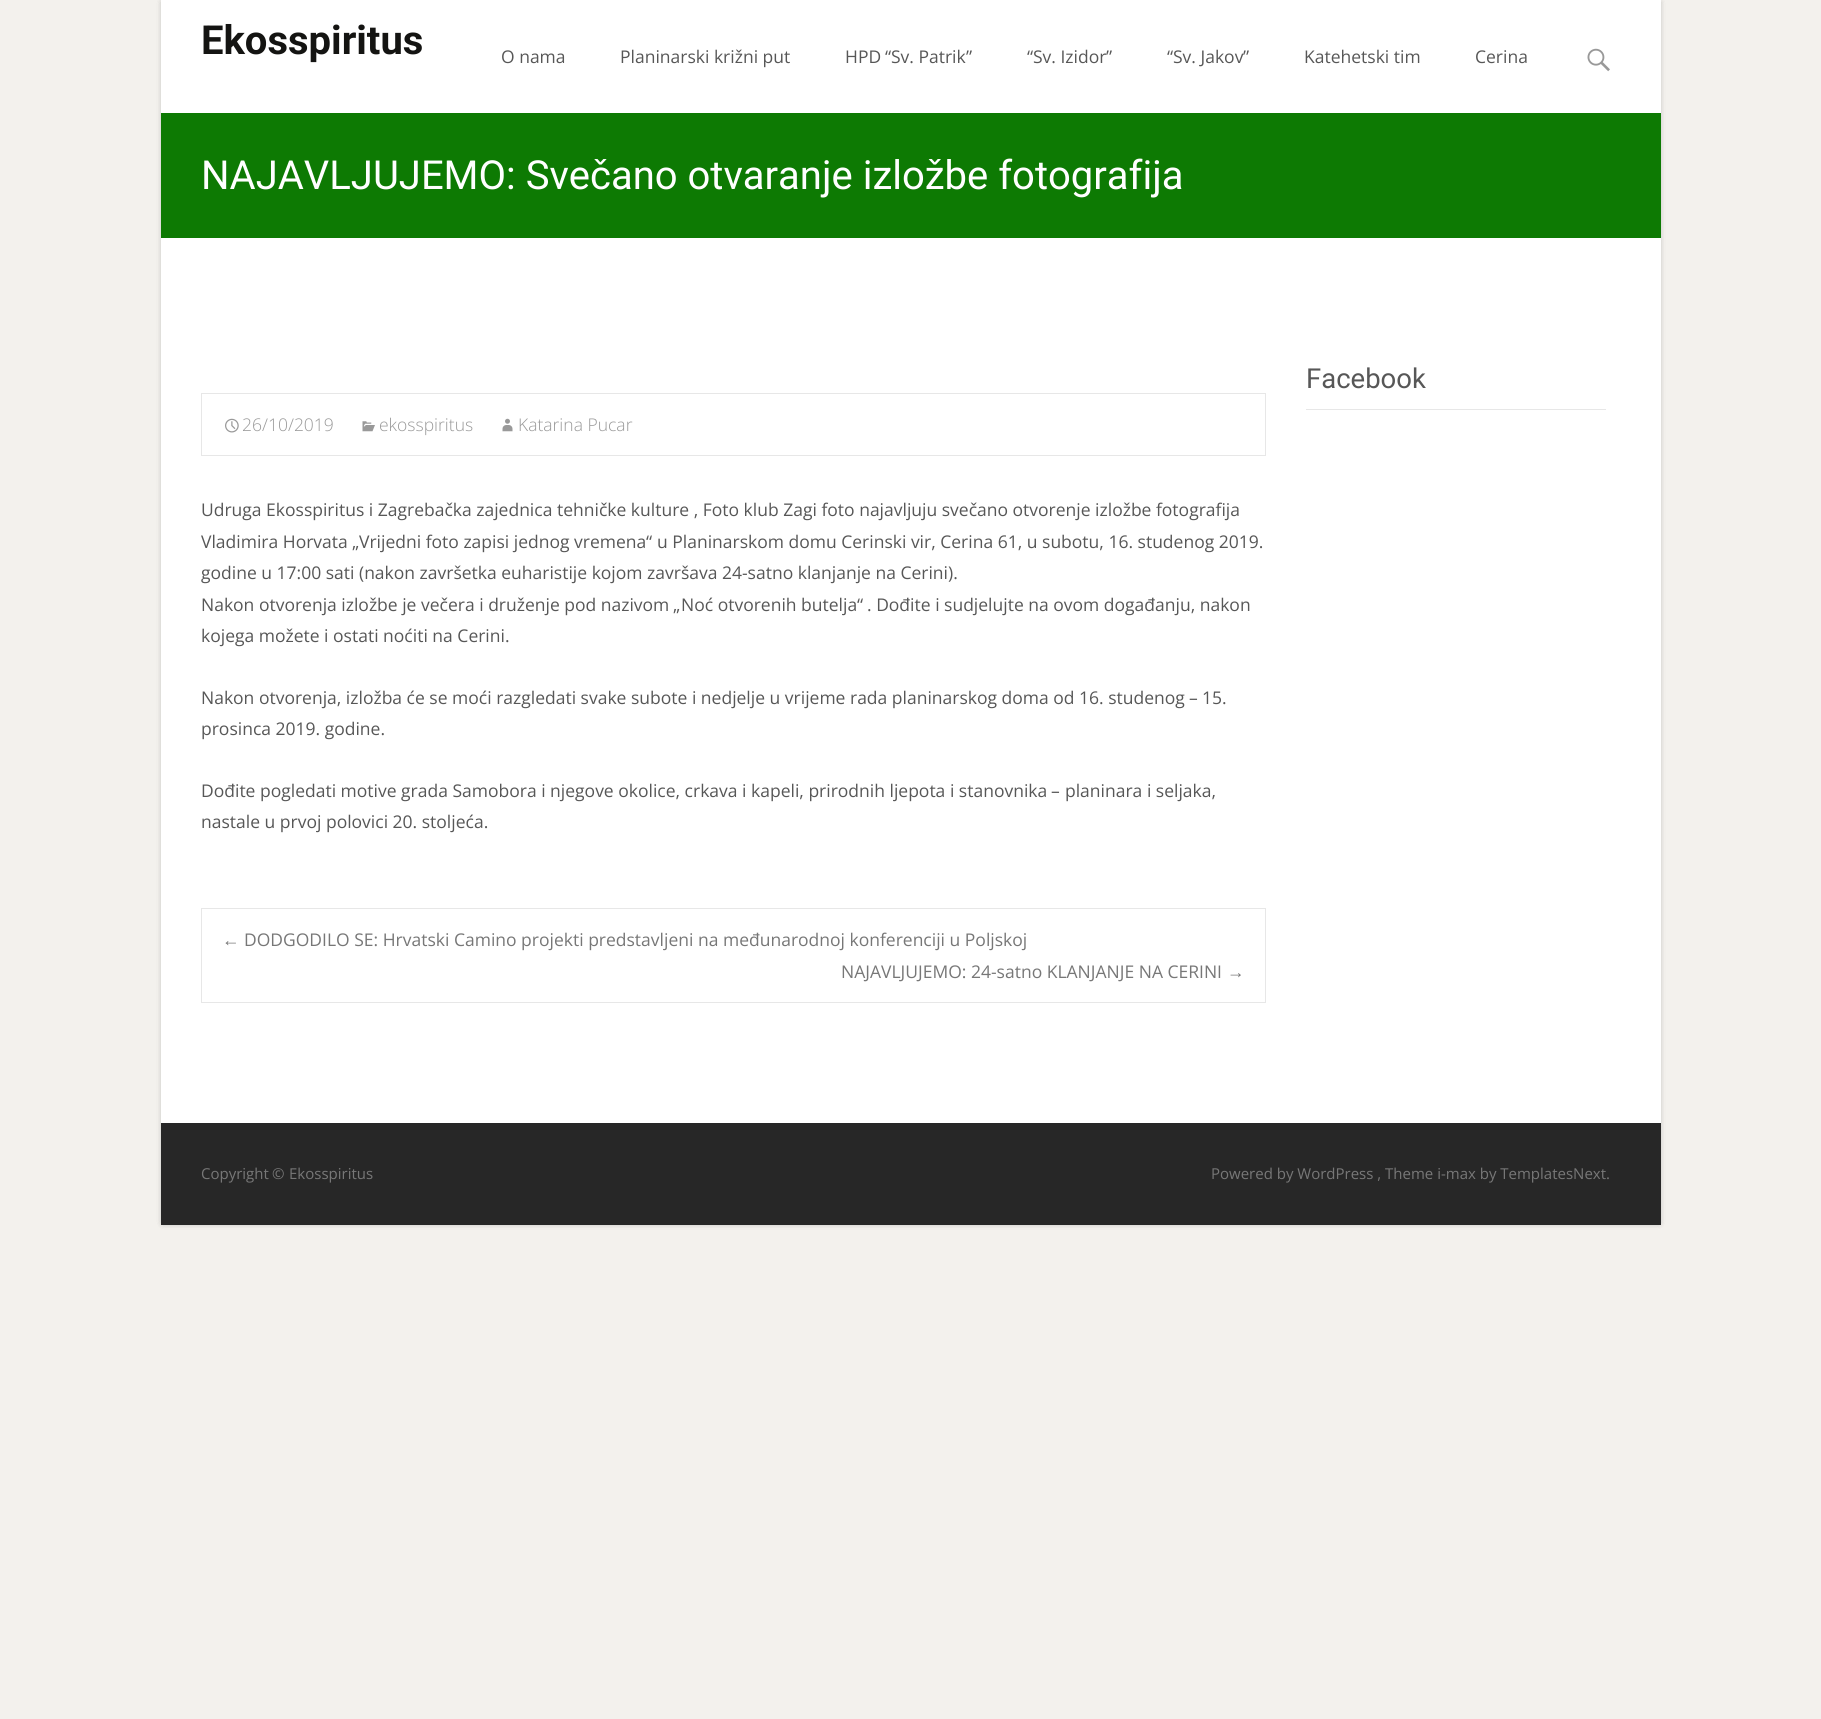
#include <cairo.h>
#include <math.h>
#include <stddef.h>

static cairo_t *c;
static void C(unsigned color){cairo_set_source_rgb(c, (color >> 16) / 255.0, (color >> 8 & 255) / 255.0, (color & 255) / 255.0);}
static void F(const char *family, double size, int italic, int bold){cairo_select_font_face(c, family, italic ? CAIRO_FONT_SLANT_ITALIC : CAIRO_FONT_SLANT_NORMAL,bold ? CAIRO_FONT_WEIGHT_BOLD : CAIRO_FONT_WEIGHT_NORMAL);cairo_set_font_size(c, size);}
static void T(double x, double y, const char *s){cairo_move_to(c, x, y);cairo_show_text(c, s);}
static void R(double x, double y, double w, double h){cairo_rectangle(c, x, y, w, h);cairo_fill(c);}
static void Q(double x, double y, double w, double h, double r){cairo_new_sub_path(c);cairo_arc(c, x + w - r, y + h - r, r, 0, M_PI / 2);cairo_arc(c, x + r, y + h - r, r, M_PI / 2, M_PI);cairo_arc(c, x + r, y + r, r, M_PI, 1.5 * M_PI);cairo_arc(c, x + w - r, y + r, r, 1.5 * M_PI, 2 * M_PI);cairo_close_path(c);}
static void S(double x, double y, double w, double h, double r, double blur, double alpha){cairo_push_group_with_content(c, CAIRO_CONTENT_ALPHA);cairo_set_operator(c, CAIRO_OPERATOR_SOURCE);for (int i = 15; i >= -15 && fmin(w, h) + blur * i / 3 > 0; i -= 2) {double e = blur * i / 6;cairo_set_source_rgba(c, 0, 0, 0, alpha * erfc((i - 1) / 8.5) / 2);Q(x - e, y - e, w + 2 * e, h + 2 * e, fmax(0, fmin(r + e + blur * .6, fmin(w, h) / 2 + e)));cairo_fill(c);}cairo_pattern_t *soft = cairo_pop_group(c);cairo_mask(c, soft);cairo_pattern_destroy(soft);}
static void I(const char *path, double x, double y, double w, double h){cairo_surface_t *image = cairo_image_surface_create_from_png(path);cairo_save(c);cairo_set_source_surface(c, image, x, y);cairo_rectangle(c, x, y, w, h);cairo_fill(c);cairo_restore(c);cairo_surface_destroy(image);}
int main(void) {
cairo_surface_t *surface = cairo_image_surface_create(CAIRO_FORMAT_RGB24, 1821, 1719);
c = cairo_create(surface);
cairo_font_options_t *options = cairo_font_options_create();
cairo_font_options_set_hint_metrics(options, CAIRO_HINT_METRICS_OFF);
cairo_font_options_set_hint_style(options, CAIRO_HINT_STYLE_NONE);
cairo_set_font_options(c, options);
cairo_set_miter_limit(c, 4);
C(0xf3f1ed);
cairo_paint(c);
C(0x000000);
S(161,0,1500,1225,2.5,2.5,.1);
S(161,0,1500,1225,2.5,2.5,.1);
C(0xffffff);
R(161,0,1500,1123);
F("Roboto",40,0,1);
C(0x141412);
T(201,54,"Ekosspiritus");
F("Open Sans",17.5,0,0);
C(0x575757);
T(501,63,"O nama");
T(620,63,"Planinarski križni put");
T(845,63,"HPD");
F("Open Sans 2",17.5,0,0);
T(885,63,"“");
F("Open Sans",17.5,0,0);
T(891,63,"Sv. Patrik");
F("Open Sans 2",17.5,0,0);
T(966,63,"”");
T(1027,63,"“");
F("Open Sans",17.5,0,0);
T(1033,63,"Sv. Izidor");
F("Open Sans 2",17.5,0,0);
T(1106,63,"”");
T(1167,63,"“");
F("Open Sans",17.5,0,0);
T(1173,63,"Sv. Jakov");
F("Open Sans 2",17.5,0,0);
T(1243,63,"”");
F("Open Sans",17.5,0,0);
T(1304,63,"Katehetski tim");
T(1475,63,"Cerina");
I("1.png",1587,48,23,24);
C(0x0d7a03);
R(161,113,1500,125);
F("Roboto",40,0,0);
C(0xffffff);
T(201,189,"NAJAVLJUJEMO: Svečano otvaranje izložbe fotografija");
C(0xe7e7e7);
R(1306,409,300,1);
F("Roboto",27.5,0,0);
C(0x575757);
T(1306,388,"Facebook");
cairo_rectangle(c,201.5,393.5,1064,62);
C(0xe7e7e7);
cairo_set_line_width(c,1);
cairo_stroke(c);
I("2.png",225,418,14,15);
F("Open Sans Light",17.5,0,0);
C(0x999999);
T(242,431,"26/10/2019");
I("3.png",362,421,13,11);
T(379,431,"ekosspiritus");
I("4.png",502,418,11,14);
T(518,431,"Katarina Pucar");
F("Open Sans",17.5,0,0);
C(0x575757);
T(201,516,"Udruga Ekosspiritus i Zagrebačka zajednica tehničke kulture , Foto klub Zagi foto najavljuju svečano otvorenje izložbe fotografija");
T(201,548,"Vladimira Horvata");
T(359,548,"Vrijedni foto zapisi jednog vremena");
F("Open Sans 2",17.5,0,0);
T(646,548,"“");
F("Open Sans",17.5,0,0);
T(657,548,"u Planinarskom domu Cerinski vir, Cerina 61, u subotu, 16. studenog 2019.");
F("Open Sans 2",17.5,0,0);
T(352,548,"„");
F("Open Sans",17.5,0,0);
T(201,579,"godine u 17:00 sati (nakon završetka euharistije kojom završava 24-satno klanjanje na Cerini).");
T(201,611,"Nakon otvorenja izložbe je večera i druženje pod nazivom");
T(681,611,"Noć otvorenih butelja");
F("Open Sans 2",17.5,0,0);
T(857,611,"“");
F("Open Sans",17.5,0,0);
T(867,611,". Dođite i sudjelujte na ovom događanju, nakon");
F("Open Sans 2",17.5,0,0);
T(673,611,"„");
F("Open Sans",17.5,0,0);
T(201,642,"kojega možete i ostati noćiti na Cerini.");
T(201,704,"Nakon otvorenja, izložba će se moći razgledati svake subote i nedjelje u vrijeme rada planinarskog doma od 16. studenog");
F("Open Sans 2",17.5,0,0);
T(1189,704,"–");
F("Open Sans",17.5,0,0);
T(1202,704,"15.");
T(201,735,"prosinca 2019. godine.");
T(201,797,"Dođite pogledati motive grada Samobora i njegove okolice, crkava i kapeli, prirodnih ljepota i stanovnika");
F("Open Sans 2",17.5,0,0);
T(1051,797,"–");
F("Open Sans",17.5,0,0);
T(1065,797,"planinara i seljaka,");
T(201,828,"nastale u prvoj polovici 20. stoljeća.");
cairo_rectangle(c,201.5,908.5,1064,94);
C(0xe7e7e7);
cairo_stroke(c);
F("Liberation Sans",17.5,0,0);
C(0x777777);
T(222,946,"←");
F("Open Sans",17.5,0,0);
T(244,946,"DODGODILO SE: Hrvatski Camino projekti predstavljeni na međunarodnoj konferenciji u Poljskoj");
T(841,978,"NAJAVLJUJEMO: 24-satno KLANJANJE NA CERINI");
F("Liberation Sans",17.5,0,0);
T(1227,978,"→");
C(0x272727);
R(161,1123,1500,102);
F("Open Sans",15,0,0);
C(0x777777);
T(201,1179,"Copyright");
F("Open Sans 2",15,0,0);
T(272,1179,"©");
F("Open Sans",15,0,0);
T(289,1179,"Ekosspiritus");
T(1211,1179,"Powered by WordPress , Theme i-max by TemplatesNext.");
cairo_surface_write_to_png(surface, "o.png");
cairo_font_options_destroy(options);
cairo_destroy(c);
cairo_surface_destroy(surface);
return 0;
}
